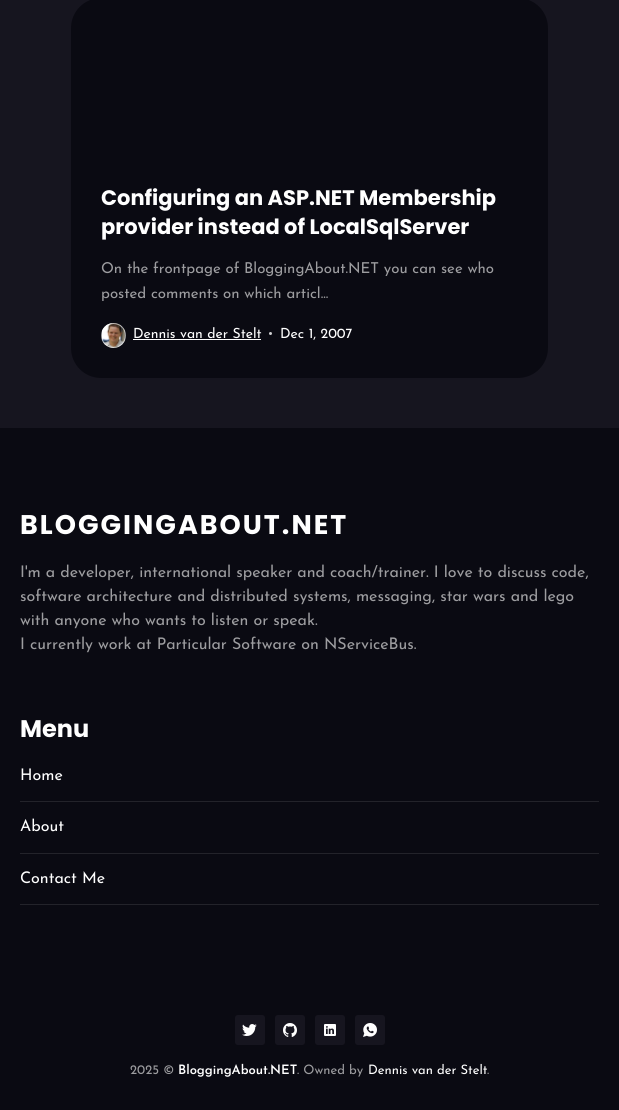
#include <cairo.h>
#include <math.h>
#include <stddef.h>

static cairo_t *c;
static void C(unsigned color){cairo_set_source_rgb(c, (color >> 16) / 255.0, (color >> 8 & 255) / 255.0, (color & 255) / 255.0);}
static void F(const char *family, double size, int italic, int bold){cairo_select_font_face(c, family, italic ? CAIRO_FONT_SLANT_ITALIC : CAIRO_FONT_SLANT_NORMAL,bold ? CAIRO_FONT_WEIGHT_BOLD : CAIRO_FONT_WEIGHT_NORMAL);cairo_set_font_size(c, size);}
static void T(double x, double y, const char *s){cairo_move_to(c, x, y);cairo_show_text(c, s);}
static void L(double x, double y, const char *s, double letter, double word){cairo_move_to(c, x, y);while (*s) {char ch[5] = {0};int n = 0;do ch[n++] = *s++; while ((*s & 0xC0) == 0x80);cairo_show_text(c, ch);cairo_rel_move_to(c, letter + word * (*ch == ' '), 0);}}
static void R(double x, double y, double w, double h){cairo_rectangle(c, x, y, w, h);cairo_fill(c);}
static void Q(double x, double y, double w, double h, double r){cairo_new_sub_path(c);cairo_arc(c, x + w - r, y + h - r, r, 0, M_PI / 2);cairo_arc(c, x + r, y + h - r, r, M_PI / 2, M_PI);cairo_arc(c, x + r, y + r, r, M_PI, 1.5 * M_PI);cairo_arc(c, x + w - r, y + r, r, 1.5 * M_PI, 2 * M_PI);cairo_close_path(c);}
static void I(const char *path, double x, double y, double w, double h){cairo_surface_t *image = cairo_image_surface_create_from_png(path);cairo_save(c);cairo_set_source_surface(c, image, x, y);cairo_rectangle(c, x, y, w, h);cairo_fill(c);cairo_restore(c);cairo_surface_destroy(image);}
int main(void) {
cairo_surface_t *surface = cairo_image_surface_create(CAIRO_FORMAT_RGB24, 619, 1110);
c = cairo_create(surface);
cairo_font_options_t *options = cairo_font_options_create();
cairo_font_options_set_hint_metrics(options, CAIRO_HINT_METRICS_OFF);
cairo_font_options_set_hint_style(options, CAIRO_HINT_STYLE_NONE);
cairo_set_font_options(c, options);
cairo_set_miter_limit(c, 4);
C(0x16151f);
cairo_paint(c);
C(0x0a0a12);
Q(71,-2,477,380,30);
cairo_fill(c);
F("Poppins",21,0,1);
C(0xffffff);
T(101,205,"Configuring an ASP.NET Membership");
T(101,234,"provider instead of LocalSqlServer");
F("Josefin Sans",15,0,0);
C(0x9d9da0);
T(101,273,"On the frontpage of BloggingAbout.NET you can see who");
T(101,298,"posted comments on which articl...");
I("1.png",102,323,23,25);
cairo_arc(c,113.5,335.5,12,0,2 * M_PI);
cairo_set_source_rgba(c,1,1,1,0.6);
cairo_set_line_width(c,1);
cairo_stroke(c);
F("Josefin Sans",14,0,0);
C(0xffffff);
T(133,338,"Dennis van der Stelt");
R(133,339,128,1);
C(0xceced0);
cairo_new_path(c);
cairo_arc(c,270.5,333.5,1.5,0,2 * M_PI);
cairo_fill(c);
C(0xffffff);
T(280,338,"Dec 1, 2007");
C(0x0a0a12);
R(0,428,619,682);
F("Poppins",27,0,1);
C(0xffffff);
L(20,534,"BLOGGINGABOUT.NET",2,0);
F("Josefin Sans",16,0,0);
C(0x9d9da0);
T(20,577,"I'm a developer, international speaker and coach/trainer. I love to discuss code,");
T(20,601,"software architecture and distributed systems, messaging, star wars and lego");
T(20,625,"with anyone who wants to listen or speak.");
T(20,649,"I currently work at Particular Software on NServiceBus.");
F("Poppins",24,0,1);
C(0xffffff);
T(20,737,"Menu");
C(0x23232a);
R(20,801,579,1);
F("Josefin Sans",16,0,0);
C(0xffffff);
T(20,780,"Home");
C(0x23232a);
R(20,853,579,1);
C(0xffffff);
T(20,831,"About");
C(0x23232a);
R(20,904,579,1);
C(0xffffff);
T(20,883,"Contact Me");
C(0x16151f);
Q(235,1015,30,30,3);
cairo_fill(c);
I("2.png",242,1024,15,12);
Q(275,1015,30,30,3);
cairo_fill(c);
I("3.png",283,1023,14,14);
Q(315,1015,30,30,3);
cairo_fill(c);
I("4.png",324,1024,12,12);
Q(355,1015,30,30,3);
cairo_fill(c);
I("5.png",363,1023,14,14);
F("Josefin Sans",13,0,0);
C(0x9d9da0);
T(130,1074,"2025 ©");
F("Josefin Sans SemiBold",13,0,0);
C(0xffffff);
T(178,1074,"BloggingAbout.NET");
F("Josefin Sans",13,0,0);
C(0x9d9da0);
T(297,1074,". Owned by");
C(0xffffff);
T(368,1074,"Dennis van der Stelt");
C(0x9d9da0);
T(487,1074,".");
cairo_surface_write_to_png(surface, "o.png");
cairo_font_options_destroy(options);
cairo_destroy(c);
cairo_surface_destroy(surface);
return 0;
}
